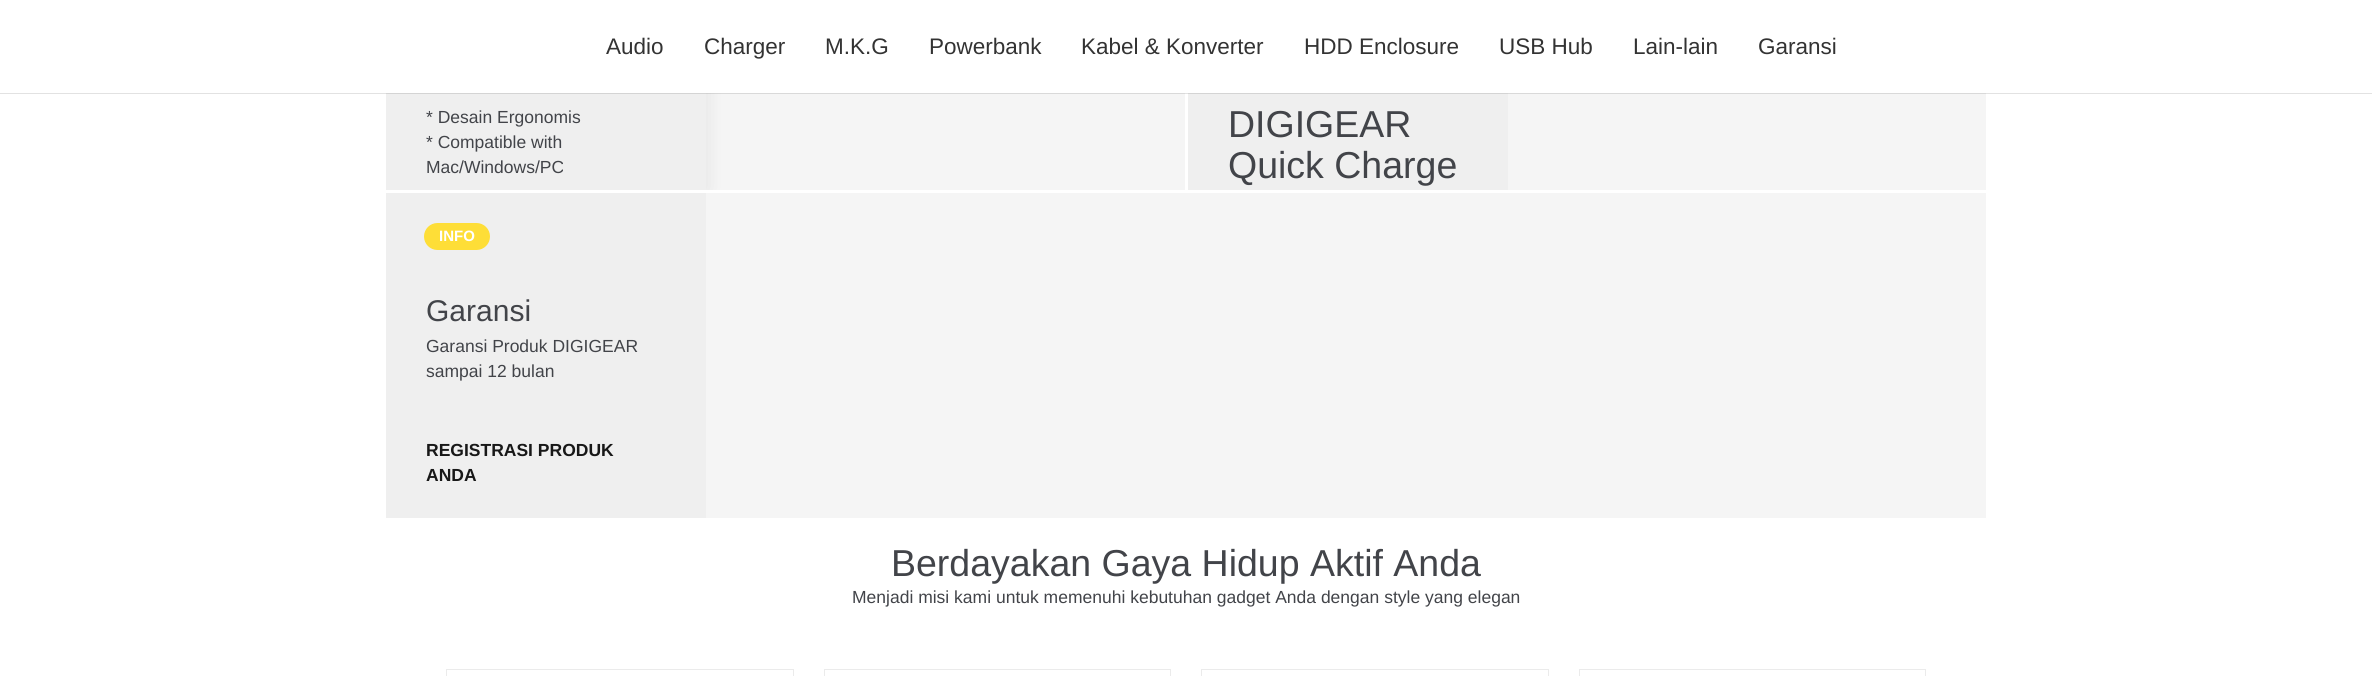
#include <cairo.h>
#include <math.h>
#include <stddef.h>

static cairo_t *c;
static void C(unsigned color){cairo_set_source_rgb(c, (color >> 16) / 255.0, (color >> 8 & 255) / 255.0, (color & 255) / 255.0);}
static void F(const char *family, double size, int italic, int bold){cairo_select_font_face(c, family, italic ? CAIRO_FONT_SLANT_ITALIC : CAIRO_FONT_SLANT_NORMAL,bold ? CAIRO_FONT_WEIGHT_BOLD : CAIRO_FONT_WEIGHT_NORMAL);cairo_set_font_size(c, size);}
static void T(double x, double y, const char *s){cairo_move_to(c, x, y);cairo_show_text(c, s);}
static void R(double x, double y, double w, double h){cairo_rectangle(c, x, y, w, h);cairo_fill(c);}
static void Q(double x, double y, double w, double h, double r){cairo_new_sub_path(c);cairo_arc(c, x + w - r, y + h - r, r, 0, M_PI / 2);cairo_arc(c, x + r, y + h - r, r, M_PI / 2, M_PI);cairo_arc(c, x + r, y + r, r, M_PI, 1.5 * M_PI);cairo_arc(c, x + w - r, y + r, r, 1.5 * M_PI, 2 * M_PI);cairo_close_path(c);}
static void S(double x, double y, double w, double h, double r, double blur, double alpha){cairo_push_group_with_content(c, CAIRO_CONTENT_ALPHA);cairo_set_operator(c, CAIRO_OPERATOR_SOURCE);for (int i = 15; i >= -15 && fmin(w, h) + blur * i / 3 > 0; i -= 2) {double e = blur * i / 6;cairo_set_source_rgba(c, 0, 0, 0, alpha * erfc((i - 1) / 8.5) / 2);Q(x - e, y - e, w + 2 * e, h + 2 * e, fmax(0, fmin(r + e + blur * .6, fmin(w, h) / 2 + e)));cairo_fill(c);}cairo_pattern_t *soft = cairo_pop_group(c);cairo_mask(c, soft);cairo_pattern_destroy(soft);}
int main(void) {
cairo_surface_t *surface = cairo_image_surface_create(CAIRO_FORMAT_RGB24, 2372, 676);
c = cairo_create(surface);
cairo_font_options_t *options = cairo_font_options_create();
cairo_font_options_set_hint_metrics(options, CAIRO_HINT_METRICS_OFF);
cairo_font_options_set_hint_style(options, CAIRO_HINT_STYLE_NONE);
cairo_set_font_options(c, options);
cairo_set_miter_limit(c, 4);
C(0xffffff);
cairo_paint(c);
C(0xf5f5f5);
R(706,93,479,97);
cairo_save(c);
cairo_rectangle(c,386,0,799,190);
cairo_clip(c);
C(0x0d0d0d);
S(386,-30,320,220,0,10,.08);
cairo_restore(c);
C(0xefefef);
R(386,93,320,97);
C(0xf5f5f5);
R(1188,93,798,97);
cairo_set_source_rgba(c,0.922,0.922,0.922,0.64);
R(1188,93,320,97);
cairo_set_source_rgba(c,0.051,0.051,0.051,0.12);
cairo_new_path(c);
cairo_move_to(c,0,92);
cairo_line_to(c,0,94);
cairo_line_to(c,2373,94);
cairo_line_to(c,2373,1);
cairo_line_to(c,2372,1);
cairo_line_to(c,2372,92);
cairo_close_path(c);
cairo_fill(c);
C(0xffffff);
R(0,0,2372,93);
F("Liberation Sans",22.5,0,0);
C(0x333333);
T(606,54,"Audio");
T(704,54,"Charger");
T(825,54,"M.K.G");
T(929,54,"Powerbank");
T(1081,54,"Kabel & Konverter");
T(1304,54,"HDD Enclosure");
T(1499,54,"USB Hub");
T(1633,54,"Lain-lain");
T(1758,54,"Garansi");
F("Liberation Sans",17.5,0,0);
C(0x424449);
T(426,123,"* Desain Ergonomis");
T(426,148,"* Compatible with");
T(426,173,"Mac/Windows/PC");
F("Liberation Sans",37.5,0,0);
T(1228,137,"DIGIGEAR");
T(1228,178,"Quick Charge");
C(0xf5f5f5);
R(386,193,1600,325);
cairo_set_source_rgba(c,0.922,0.922,0.922,0.64);
R(386,193,320,325);
C(0xfede37);
Q(424,223,66,27,13.5);
cairo_fill(c);
F("Liberation Sans",15,0,1);
C(0xffffff);
T(439,241,"INFO");
F("Liberation Sans",30,0,0);
C(0x424449);
T(426,321,"Garansi");
F("Liberation Sans",17.5,0,0);
T(426,352,"Garansi Produk DIGIGEAR");
T(426,377,"sampai 12 bulan");
F("Liberation Sans",17.5,0,1);
C(0x181818);
T(426,456,"REGISTRASI PRODUK");
T(426,481,"ANDA");
F("Liberation Sans",37.5,0,0);
C(0x424449);
T(891,576,"Berdayakan Gaya Hidup Aktif Anda");
F("Liberation Sans",17.5,0,0);
T(852,603,"Menjadi misi kami untuk memenuhi kebutuhan gadget Anda dengan style yang elegan");
cairo_rectangle(c,446.5,669.5,347,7);
C(0xebebeb);
cairo_set_line_width(c,1);
cairo_stroke(c);
cairo_rectangle(c,824.5,669.5,346,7);
cairo_stroke(c);
cairo_rectangle(c,1201.5,669.5,347,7);
cairo_stroke(c);
cairo_rectangle(c,1579.5,669.5,346,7);
cairo_stroke(c);
cairo_surface_write_to_png(surface, "o.png");
cairo_font_options_destroy(options);
cairo_destroy(c);
cairo_surface_destroy(surface);
return 0;
}
